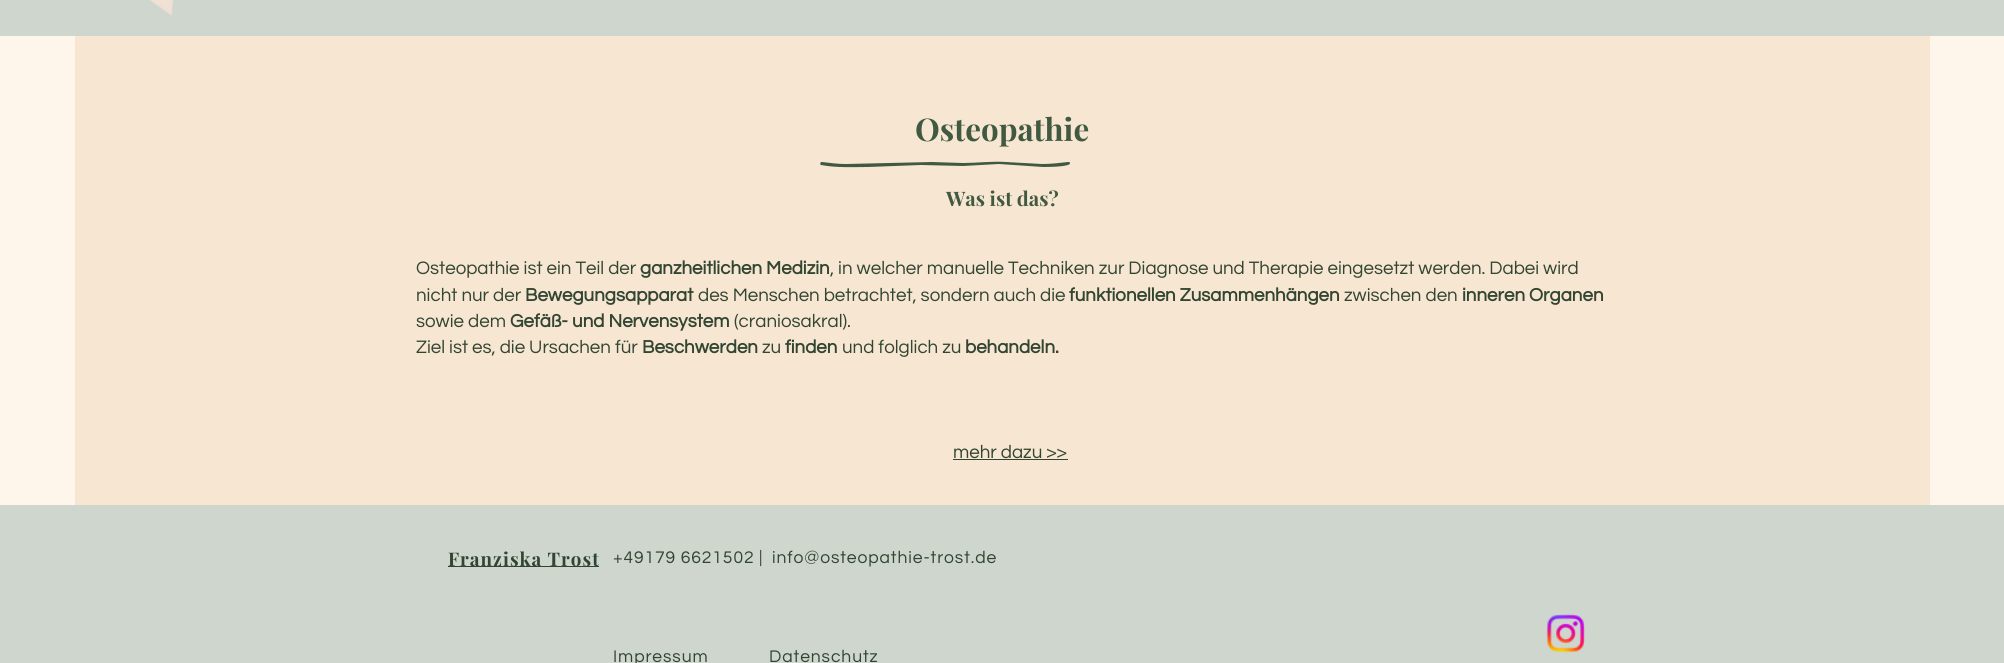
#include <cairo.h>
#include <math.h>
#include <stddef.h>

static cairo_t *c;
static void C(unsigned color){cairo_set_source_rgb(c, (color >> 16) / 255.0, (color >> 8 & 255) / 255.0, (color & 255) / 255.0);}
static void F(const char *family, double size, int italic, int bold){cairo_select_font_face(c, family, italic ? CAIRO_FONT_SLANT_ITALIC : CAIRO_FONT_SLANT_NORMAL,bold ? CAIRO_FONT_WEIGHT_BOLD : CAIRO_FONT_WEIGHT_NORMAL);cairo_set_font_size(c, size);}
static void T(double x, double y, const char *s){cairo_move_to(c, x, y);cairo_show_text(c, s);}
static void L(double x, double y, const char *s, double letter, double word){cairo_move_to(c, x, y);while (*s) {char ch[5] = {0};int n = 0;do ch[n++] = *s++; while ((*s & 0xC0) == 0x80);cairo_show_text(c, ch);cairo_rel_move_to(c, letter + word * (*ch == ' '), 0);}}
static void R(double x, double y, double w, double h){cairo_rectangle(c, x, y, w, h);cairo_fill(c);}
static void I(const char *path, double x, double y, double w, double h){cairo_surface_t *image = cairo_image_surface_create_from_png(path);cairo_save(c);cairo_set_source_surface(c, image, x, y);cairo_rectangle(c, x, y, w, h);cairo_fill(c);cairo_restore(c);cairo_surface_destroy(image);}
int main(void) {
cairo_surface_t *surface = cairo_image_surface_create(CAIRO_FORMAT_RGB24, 2004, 663);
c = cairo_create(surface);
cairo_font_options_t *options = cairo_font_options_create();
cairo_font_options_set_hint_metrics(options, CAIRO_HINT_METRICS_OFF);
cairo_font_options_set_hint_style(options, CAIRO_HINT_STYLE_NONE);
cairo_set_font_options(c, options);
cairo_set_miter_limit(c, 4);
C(0xfff6eb);
cairo_paint(c);
C(0xced6ce);
R(0,0,2004,36);
I("1.png",149,0,25,15);
C(0xf6e6d2);
R(75,36,1855,469);
F("Playfair Display",31.25,0,1);
C(0x415941);
T(915,141,"Osteopathie");
cairo_new_path(c);
cairo_move_to(c,821,165);
cairo_curve_to(c,837,168,853,167,868,167);
cairo_line_to(c,921,165);
cairo_line_to(c,963,166);
cairo_line_to(c,999,164);
cairo_line_to(c,1043,167);
cairo_curve_to(c,1047,167,1071,167,1070,163);
cairo_curve_to(c,1070,162,1069,162,1068,162);
cairo_curve_to(c,1059,163,1051,164,1042,164);
cairo_line_to(c,1006,162);
cairo_curve_to(c,992,161,977,163,963,163);
cairo_line_to(c,932,162);
cairo_line_to(c,846,164);
cairo_curve_to(c,838,164,830,163,822,162);
cairo_line_to(c,821,162);
cairo_curve_to(c,820,163,820,165,821,165);
cairo_close_path(c);
cairo_fill(c);
F("Playfair Display",20,0,1);
T(946,206,"Was ist das?");
F("Questrial",18.75,0,0);
C(0x324532);
T(416,274,"Osteopathie ist ein Teil der");
F("Questrial",18.75,0,1);
T(640,274,"ganzheitlichen Medizin");
F("Questrial",18.75,0,0);
T(830,274,", in welcher manuelle Techniken zur Diagnose und Therapie eingesetzt werden. Dabei wird");
T(416,301,"nicht nur der");
F("Questrial",18.75,0,1);
T(525,301,"Bewegungsapparat");
F("Questrial",18.75,0,0);
T(698,301,"des Menschen betrachtet, sondern auch die");
F("Questrial",18.75,0,1);
T(1069,301,"funktionellen Zusammenhängen");
F("Questrial",18.75,0,0);
T(1344,301,"zwischen den");
F("Questrial",18.75,0,1);
T(1462,301,"inneren Organen");
F("Questrial",18.75,0,0);
T(416,327,"sowie dem");
F("Questrial",18.75,0,1);
T(510,327,"Gefäß- und Nervensystem");
F("Questrial",18.75,0,0);
T(734,327,"(craniosakral).");
T(416,353,"Ziel ist es, die Ursachen für");
F("Questrial",18.75,0,1);
T(642,353,"Beschwerden");
F("Questrial",18.75,0,0);
T(762,353,"zu");
F("Questrial",18.75,0,1);
T(785,353,"finden");
F("Questrial",18.75,0,0);
T(842,353,"und folglich zu");
F("Questrial",18.75,0,1);
T(965,353,"behandeln.");
F("Questrial",18.75,0,0);
T(953,458,"mehr dazu >>");
R(953,459,115,1);
C(0xced6ce);
R(0,505,2004,158);
C(0x324532);
R(448,566,151,1);
F("Playfair Display",18.75,0,1);
L(448,566,"Franziska Trost",1,0);
F("Questrial",17.5,0,0);
L(613,563,"+49179 6621502 |",.9,0);
L(772,563,"info@osteopathie-trost.de",.9,0);
I("2.png",1546,614,39,39);
L(613,662,"Impressum",.9,0);
L(769,662,"Datenschutz",.9,0);
cairo_surface_write_to_png(surface, "o.png");
cairo_font_options_destroy(options);
cairo_destroy(c);
cairo_surface_destroy(surface);
return 0;
}
